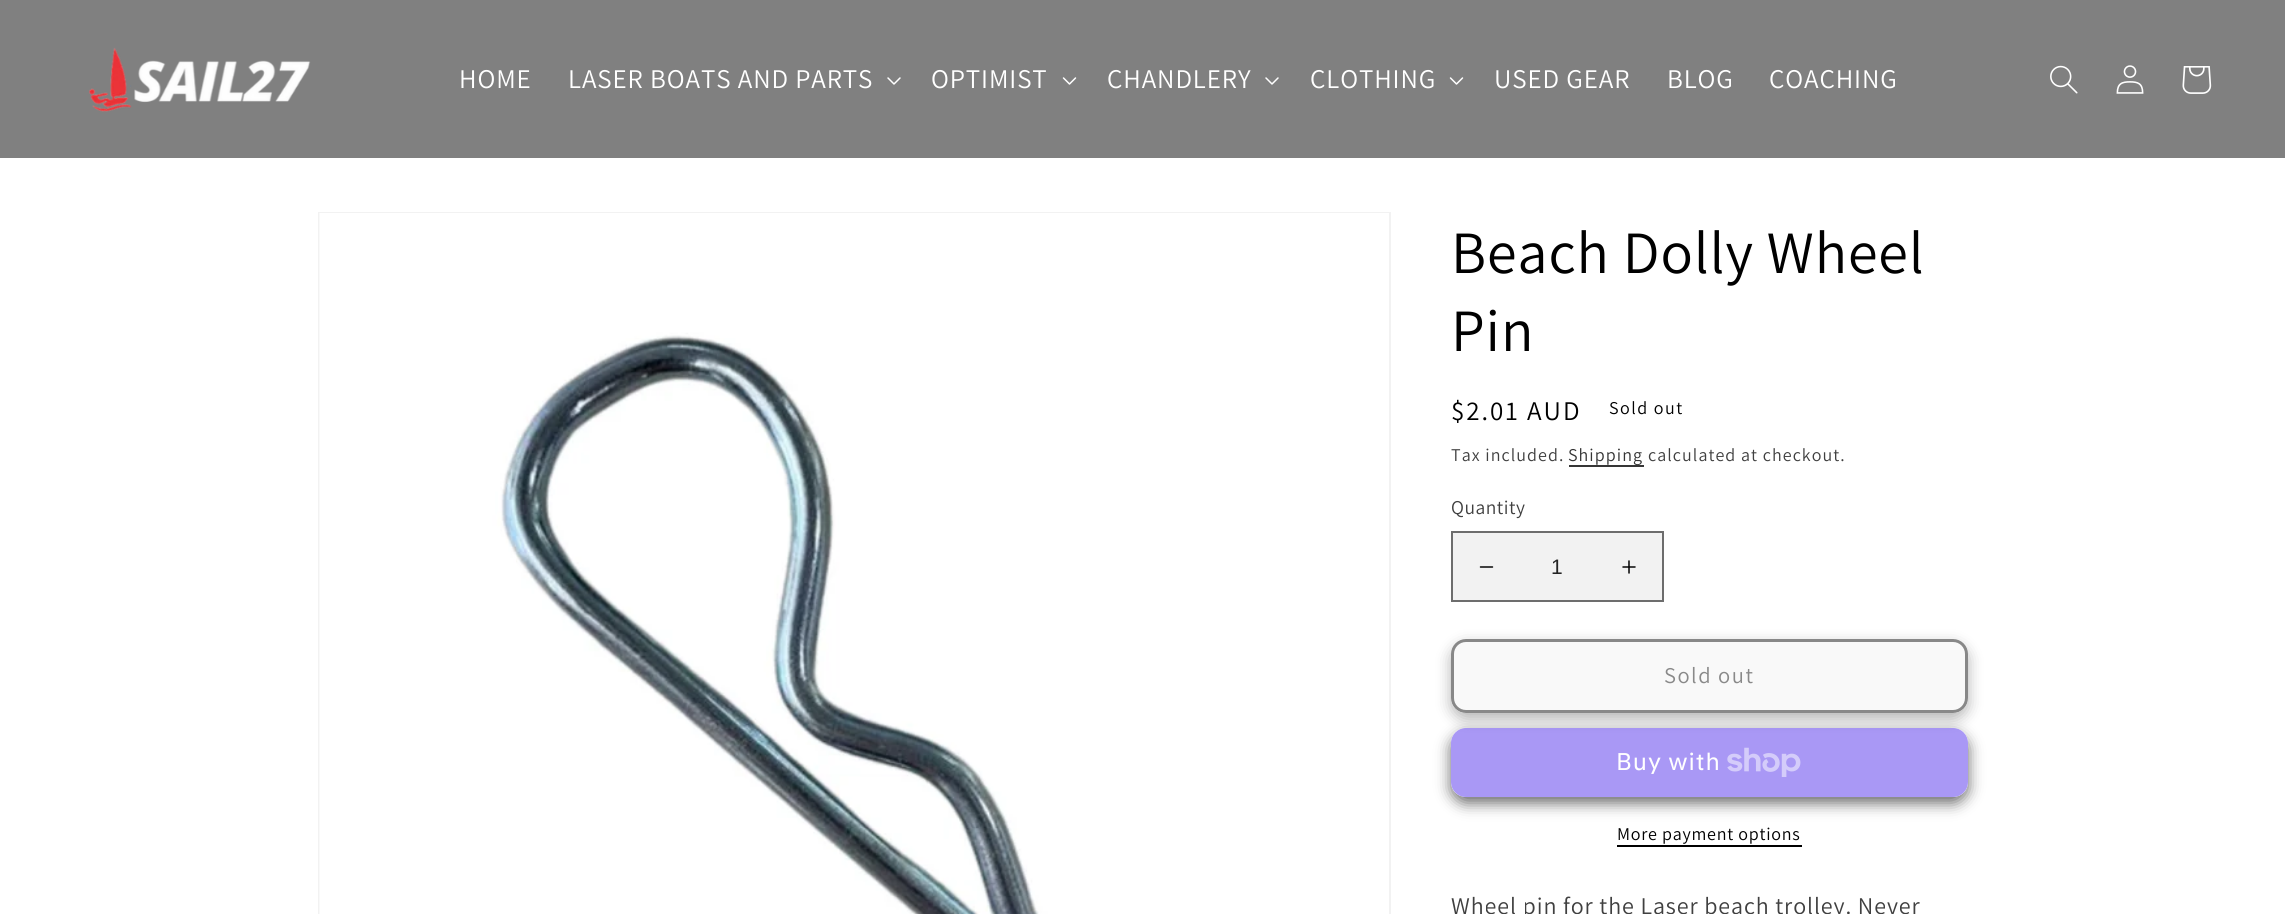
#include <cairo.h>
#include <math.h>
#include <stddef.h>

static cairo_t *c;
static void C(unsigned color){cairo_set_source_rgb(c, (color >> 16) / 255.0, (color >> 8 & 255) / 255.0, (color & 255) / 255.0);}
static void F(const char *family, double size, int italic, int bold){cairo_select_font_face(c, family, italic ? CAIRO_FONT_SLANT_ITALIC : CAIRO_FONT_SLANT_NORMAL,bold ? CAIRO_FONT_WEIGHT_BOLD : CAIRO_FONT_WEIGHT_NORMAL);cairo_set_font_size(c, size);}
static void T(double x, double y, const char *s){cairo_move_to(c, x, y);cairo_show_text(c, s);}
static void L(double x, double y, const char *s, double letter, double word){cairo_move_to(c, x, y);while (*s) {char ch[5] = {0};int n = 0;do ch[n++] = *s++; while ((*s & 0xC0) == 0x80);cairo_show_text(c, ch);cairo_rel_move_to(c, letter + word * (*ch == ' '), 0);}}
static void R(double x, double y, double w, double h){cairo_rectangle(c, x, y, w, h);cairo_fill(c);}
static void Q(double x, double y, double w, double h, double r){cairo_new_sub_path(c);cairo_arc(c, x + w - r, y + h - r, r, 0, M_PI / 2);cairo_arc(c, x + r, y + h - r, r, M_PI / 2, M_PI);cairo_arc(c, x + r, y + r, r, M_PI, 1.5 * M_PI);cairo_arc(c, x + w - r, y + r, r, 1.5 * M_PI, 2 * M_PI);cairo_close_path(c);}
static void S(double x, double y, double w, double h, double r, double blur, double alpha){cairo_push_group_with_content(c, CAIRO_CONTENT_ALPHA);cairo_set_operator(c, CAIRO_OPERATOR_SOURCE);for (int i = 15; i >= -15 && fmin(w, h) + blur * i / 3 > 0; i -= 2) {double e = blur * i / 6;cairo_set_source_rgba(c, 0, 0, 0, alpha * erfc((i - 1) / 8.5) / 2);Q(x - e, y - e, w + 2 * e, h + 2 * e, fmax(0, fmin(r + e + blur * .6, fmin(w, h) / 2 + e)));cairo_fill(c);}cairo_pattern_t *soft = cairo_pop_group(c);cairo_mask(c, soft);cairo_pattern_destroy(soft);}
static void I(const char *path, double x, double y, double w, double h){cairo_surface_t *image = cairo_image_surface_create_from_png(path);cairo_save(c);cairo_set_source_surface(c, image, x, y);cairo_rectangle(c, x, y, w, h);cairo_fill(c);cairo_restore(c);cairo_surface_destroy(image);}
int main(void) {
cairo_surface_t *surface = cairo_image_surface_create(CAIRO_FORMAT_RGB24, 2285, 914);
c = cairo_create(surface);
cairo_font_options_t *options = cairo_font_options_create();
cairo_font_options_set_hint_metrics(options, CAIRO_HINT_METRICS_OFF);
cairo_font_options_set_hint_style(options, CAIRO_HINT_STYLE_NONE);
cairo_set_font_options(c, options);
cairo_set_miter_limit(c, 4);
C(0xffffff);
cairo_paint(c);
C(0x808080);
R(0,0,2285,158);
I("1.png",89,47,222,65);
F("Assistant",27,0,0);
C(0xffffff);
L(459,88,"HOME",.9,0);
L(568,88,"LASER BOATS AND PARTS",.9,0);
I("2.png",887,77,14,8);
L(931,88,"OPTIMIST",.9,0);
I("3.png",1062,77,15,8);
L(1107,88,"CHANDLERY",.9,0);
I("2.png",1265,77,14,8);
L(1310,88,"CLOTHING",.9,0);
I("3.png",1449,77,15,8);
L(1494,88,"USED GEAR",.9,0);
L(1667,88,"BLOG",.9,0);
L(1769,88,"COACHING",.9,0);
I("4.png",2050,65,28,29);
I("5.png",2116,65,28,29);
I("6.png",2182,66,30,28);
cairo_rectangle(c,319,213,1071,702);
C(0xf2f2f2);
cairo_stroke(c);
I("7.png",319,213,1070,701);
F("Assistant",60,0,0);
C(0x000000);
L(1451,273,"Beach Dolly Wheel",.9,0);
L(1451,351,"Pin",.9,0);
F("Assistant",27,0,0);
L(1451,420,"$2.01 AUD",2,0);
F("Assistant",18,0,0);
L(1609,414,"Sold out",1.5,0);
C(0x404040);
L(1451,461,"Tax included.",1.05,0);
C(0x363636);
R(1569,465,75,2);
C(0x353535);
L(1568,461,"Shipping",1.05,0);
C(0x404040);
L(1648,461,"calculated at checkout.",1.05,0);
F("Assistant",19.5,0,0);
L(1451,514,"Quantity",.5,0);
C(0xf2f2f2);
R(1453,533,209,67);
I("8.png",1479,566,15,2);
I("9.png",1622,560,14,14);
cairo_rectangle(c,1452,532,211,69);
C(0x6d6d6d);
cairo_stroke(c);
F("Liberation Sans",21,0,0);
C(0x242424);
T(1551,574,"1");
cairo_save(c);
cairo_set_fill_rule(c,CAIRO_FILL_RULE_EVEN_ODD);
cairo_new_path(c);
cairo_move_to(c,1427,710);
cairo_line_to(c,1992,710);
cairo_line_to(c,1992,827);
cairo_line_to(c,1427,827);
cairo_close_path(c);
cairo_move_to(c,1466,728);
cairo_line_to(c,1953,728);
cairo_curve_to(c,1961.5,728,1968,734.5,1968,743);
cairo_line_to(c,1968,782);
cairo_curve_to(c,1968,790.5,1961.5,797,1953,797);
cairo_line_to(c,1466,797);
cairo_curve_to(c,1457.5,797,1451,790.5,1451,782);
cairo_line_to(c,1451,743);
cairo_curve_to(c,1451,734.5,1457.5,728,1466,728);
cairo_close_path(c);
cairo_clip(c);
C(0x000000);
S(1451,734,517,69,15,7.5,.6);
cairo_restore(c);
C(0xf9f9f9);
Q(1451,639,517,74,15);
cairo_fill(c);
cairo_save(c);
cairo_set_fill_rule(c,CAIRO_FILL_RULE_EVEN_ODD);
cairo_new_path(c);
cairo_move_to(c,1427,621);
cairo_line_to(c,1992,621);
cairo_line_to(c,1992,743);
cairo_line_to(c,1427,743);
cairo_close_path(c);
cairo_move_to(c,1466,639);
cairo_line_to(c,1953,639);
cairo_curve_to(c,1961.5,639,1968,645.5,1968,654);
cairo_line_to(c,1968,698);
cairo_curve_to(c,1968,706.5,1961.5,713,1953,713);
cairo_line_to(c,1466,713);
cairo_curve_to(c,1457.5,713,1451,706.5,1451,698);
cairo_line_to(c,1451,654);
cairo_curve_to(c,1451,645.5,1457.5,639,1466,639);
cairo_close_path(c);
cairo_clip(c);
C(0x000000);
S(1451,645,517,74,15,7.5,.3);
cairo_restore(c);
Q(1452.5,640.5,514,71,13.5);
C(0xf8f8f8);
cairo_set_line_width(c,3);
cairo_stroke(c);
Q(1452.5,640.5,514,71,13.5);
C(0x888888);
cairo_stroke(c);
F("Assistant",22.5,0,0);
C(0x898989);
L(1664,683,"Sold out",1.5,0);
cairo_set_source_rgba(c,0.329,0.2,0.922,0.5);
Q(1451,728,517,69,15);
cairo_fill(c);
F("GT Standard",24,0,0);
C(0xffffff);
L(1616,770,"Buy with",.9,0);
I("10.png",1727,747,74,30);
F("Assistant",18,0,0);
C(0x000000);
L(1617,840,"More payment options",.75,0);
R(1617,845,185,2);
F("Assistant",24,0,0);
C(0x404040);
L(1451,914,"Wheel pin for the Laser beach trolley. Never",.9,0);
cairo_surface_write_to_png(surface, "o.png");
cairo_font_options_destroy(options);
cairo_destroy(c);
cairo_surface_destroy(surface);
return 0;
}
